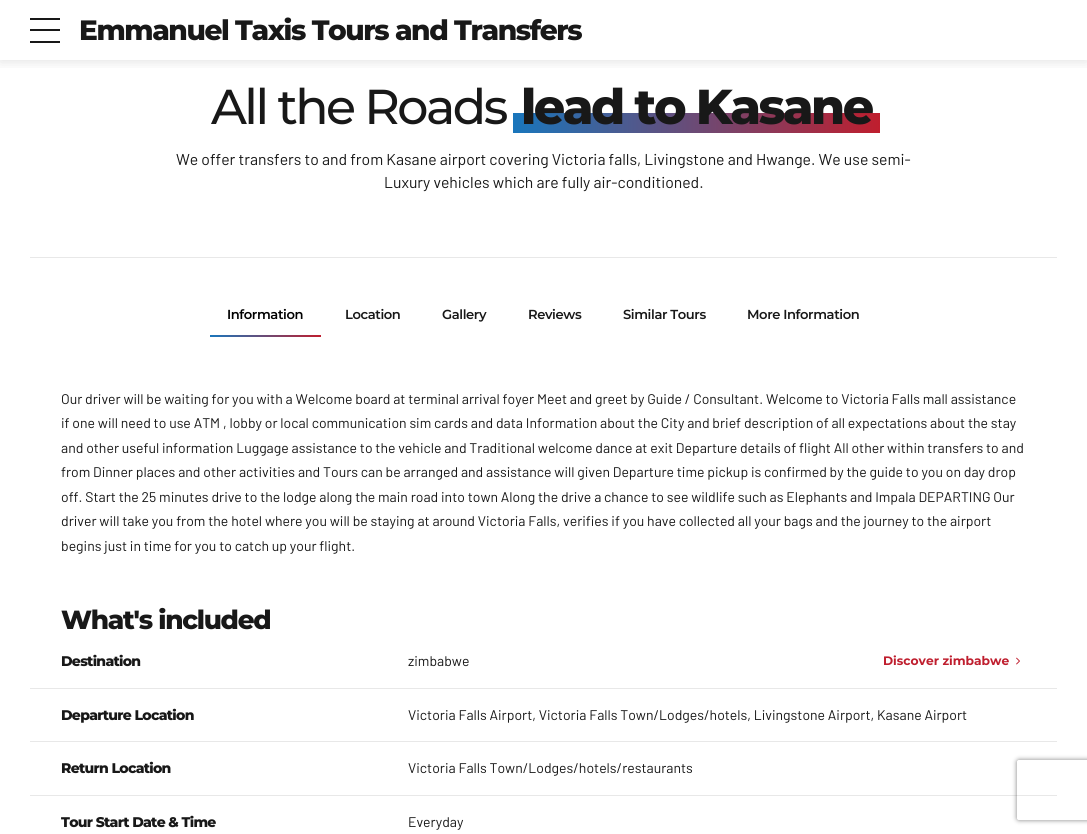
#include <cairo.h>
#include <math.h>
#include <stddef.h>

static cairo_t *c;
static void C(unsigned color){cairo_set_source_rgb(c, (color >> 16) / 255.0, (color >> 8 & 255) / 255.0, (color & 255) / 255.0);}
static void F(const char *family, double size, int italic, int bold){cairo_select_font_face(c, family, italic ? CAIRO_FONT_SLANT_ITALIC : CAIRO_FONT_SLANT_NORMAL,bold ? CAIRO_FONT_WEIGHT_BOLD : CAIRO_FONT_WEIGHT_NORMAL);cairo_set_font_size(c, size);}
static void T(double x, double y, const char *s){cairo_move_to(c, x, y);cairo_show_text(c, s);}
static void L(double x, double y, const char *s, double letter, double word){cairo_move_to(c, x, y);while (*s) {char ch[5] = {0};int n = 0;do ch[n++] = *s++; while ((*s & 0xC0) == 0x80);cairo_show_text(c, ch);cairo_rel_move_to(c, letter + word * (*ch == ' '), 0);}}
static void R(double x, double y, double w, double h){cairo_rectangle(c, x, y, w, h);cairo_fill(c);}
static void Q(double x, double y, double w, double h, double r){cairo_new_sub_path(c);cairo_arc(c, x + w - r, y + h - r, r, 0, M_PI / 2);cairo_arc(c, x + r, y + h - r, r, M_PI / 2, M_PI);cairo_arc(c, x + r, y + r, r, M_PI, 1.5 * M_PI);cairo_arc(c, x + w - r, y + r, r, 1.5 * M_PI, 2 * M_PI);cairo_close_path(c);}
static void S(double x, double y, double w, double h, double r, double blur, double alpha){cairo_push_group_with_content(c, CAIRO_CONTENT_ALPHA);cairo_set_operator(c, CAIRO_OPERATOR_SOURCE);for (int i = 15; i >= -15 && fmin(w, h) + blur * i / 3 > 0; i -= 2) {double e = blur * i / 6;cairo_set_source_rgba(c, 0, 0, 0, alpha * erfc((i - 1) / 8.5) / 2);Q(x - e, y - e, w + 2 * e, h + 2 * e, fmax(0, fmin(r + e + blur * .6, fmin(w, h) / 2 + e)));cairo_fill(c);}cairo_pattern_t *soft = cairo_pop_group(c);cairo_mask(c, soft);cairo_pattern_destroy(soft);}
static void I(const char *path, double x, double y, double w, double h){cairo_surface_t *image = cairo_image_surface_create_from_png(path);cairo_save(c);cairo_set_source_surface(c, image, x, y);cairo_rectangle(c, x, y, w, h);cairo_fill(c);cairo_restore(c);cairo_surface_destroy(image);}
int main(void) {
cairo_surface_t *surface = cairo_image_surface_create(CAIRO_FORMAT_RGB24, 1087, 834);
c = cairo_create(surface);
cairo_font_options_t *options = cairo_font_options_create();
cairo_font_options_set_hint_metrics(options, CAIRO_HINT_METRICS_OFF);
cairo_font_options_set_hint_style(options, CAIRO_HINT_STYLE_NONE);
cairo_set_font_options(c, options);
cairo_set_miter_limit(c, 4);
cairo_pattern_t *gradient;
C(0xffffff);
cairo_paint(c);
cairo_save(c);
cairo_rectangle(c,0,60,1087,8);
cairo_clip(c);
C(0x181818);
S(0,0,1087,60,0,7.5,.15);
cairo_restore(c);
C(0x181818);
R(30,18,30,2);
R(30,29,30,2);
R(30,41,30,2);
F("Montserrat ExtraBold",28,0,0);
L(79,40,"Emmanuel Taxis Tours and Transfers",-1.4,0);
C(0xe8e8e8);
R(30,257,1027,1);
F("Montserrat Medium",49,0,0);
C(0x181818);
L(211,124,"All the Roads",-2.5,0);
gradient = cairo_pattern_create_linear(513,123,880,123);
cairo_pattern_add_color_stop_rgba(gradient,0,0.098,0.463,0.737,1);
cairo_pattern_add_color_stop_rgba(gradient,1,0.749,0.118,0.18,1);
cairo_set_source(c,gradient);
cairo_pattern_destroy(gradient);
R(513,113,367,20);
F("Montserrat ExtraBold",49,0,0);
C(0x181818);
L(521,124,"lead to Kasane",-2.5,0);
F("Barlow",15.75,0,0);
T(176,165,"We offer transfers to and from Kasane airport covering Victoria falls, Livingstone and Hwange. We use semi-");
T(384,188,"Luxury vehicles which are fully air-conditioned.");
F("Montserrat SemiBold",13.1,0,0);
C(0x000000);
L(227,319,"Information",-.4,0);
gradient = cairo_pattern_create_linear(210,336,321,336);
cairo_pattern_add_color_stop_rgba(gradient,0,0.098,0.463,0.737,1);
cairo_pattern_add_color_stop_rgba(gradient,1,0.749,0.118,0.18,1);
cairo_set_source(c,gradient);
cairo_pattern_destroy(gradient);
R(210,335,111,2);
C(0x181818);
L(345,319,"Location",-.4,0);
L(442,319,"Gallery",-.4,0);
L(528,319,"Reviews",-.4,0);
L(623,319,"Similar Tours",-.4,0);
L(747,319,"More Information",-.4,0);
F("Barlow",14,0,0);
T(61,404,"Our driver will be waiting for you with a Welcome board at terminal arrival foyer Meet and greet by Guide / Consultant. Welcome to Victoria Falls mall assistance");
T(61,428,"if one will need to use ATM , lobby or local communication sim cards and data Information about the City and brief description of all expectations about the stay");
T(61,453,"and other useful information Luggage assistance to the vehicle and Traditional welcome dance at exit Departure details of flight All other within transfers to and");
T(61,477,"from Dinner places and other activities and Tours can be arranged and assistance will given Departure time pickup is confirmed by the guide to you on day drop");
T(61,502,"off. Start the 25 minutes drive to the lodge along the main road into town Along the drive a chance to see wildlife such as Elephants and Impala DEPARTING Our");
T(61,526,"driver will take you from the hotel where you will be staying at around Victoria Falls, verifies if you have collected all your bags and the journey to the airport");
T(61,551,"begins just in time for you to catch up your flight.");
F("Montserrat ExtraBold",26.25,0,0);
L(61,629,"What's included",-1.25,0);
F("Montserrat ExtraBold",14,0,0);
L(61,666,"Destination",-.7,0);
F("Barlow",14,0,0);
T(408,666,"zimbabwe");
F("Montserrat",12.25,0,1);
C(0xbf1e2e);
T(883,665,"Discover zimbabwe");
I("1.png",1016,657,4,8);
C(0xe8e8e8);
R(30,688,1027,1);
F("Montserrat ExtraBold",14,0,0);
C(0x181818);
L(61,720,"Departure Location",-.7,0);
F("Barlow",14,0,0);
T(408,720,"Victoria Falls Airport, Victoria Falls Town/Lodges/hotels, Livingstone Airport, Kasane Airport");
C(0xe8e8e8);
R(30,741,1027,1);
F("Montserrat ExtraBold",14,0,0);
C(0x181818);
L(61,773,"Return Location",-.7,0);
F("Barlow",14,0,0);
T(408,773,"Victoria Falls Town/Lodges/hotels/restaurants");
cairo_save(c);
cairo_set_fill_rule(c,CAIRO_FILL_RULE_EVEN_ODD);
cairo_new_path(c);
cairo_move_to(c,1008,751);
cairo_line_to(c,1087,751);
cairo_line_to(c,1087,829);
cairo_line_to(c,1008,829);
cairo_close_path(c);
cairo_move_to(c,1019,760);
cairo_line_to(c,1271,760);
cairo_curve_to(c,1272,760,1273,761,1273,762);
cairo_line_to(c,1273,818);
cairo_curve_to(c,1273,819,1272,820,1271,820);
cairo_line_to(c,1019,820);
cairo_curve_to(c,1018,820,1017,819,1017,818);
cairo_line_to(c,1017,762);
cairo_curve_to(c,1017,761,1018,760,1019,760);
cairo_close_path(c);
cairo_clip(c);
C(0x808080);
S(1017,760,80,60,2,2.5,1);
cairo_restore(c);
cairo_set_source_rgba(c,0.094,0.094,0.094,0.1);
R(30,795,1027,1);
F("Montserrat ExtraBold",14,0,0);
C(0x181818);
L(61,827,"Tour Start Date & Time",-.7,0);
F("Barlow",14,0,0);
T(408,827,"Everyday");
cairo_surface_write_to_png(surface, "o.png");
cairo_font_options_destroy(options);
cairo_destroy(c);
cairo_surface_destroy(surface);
return 0;
}
